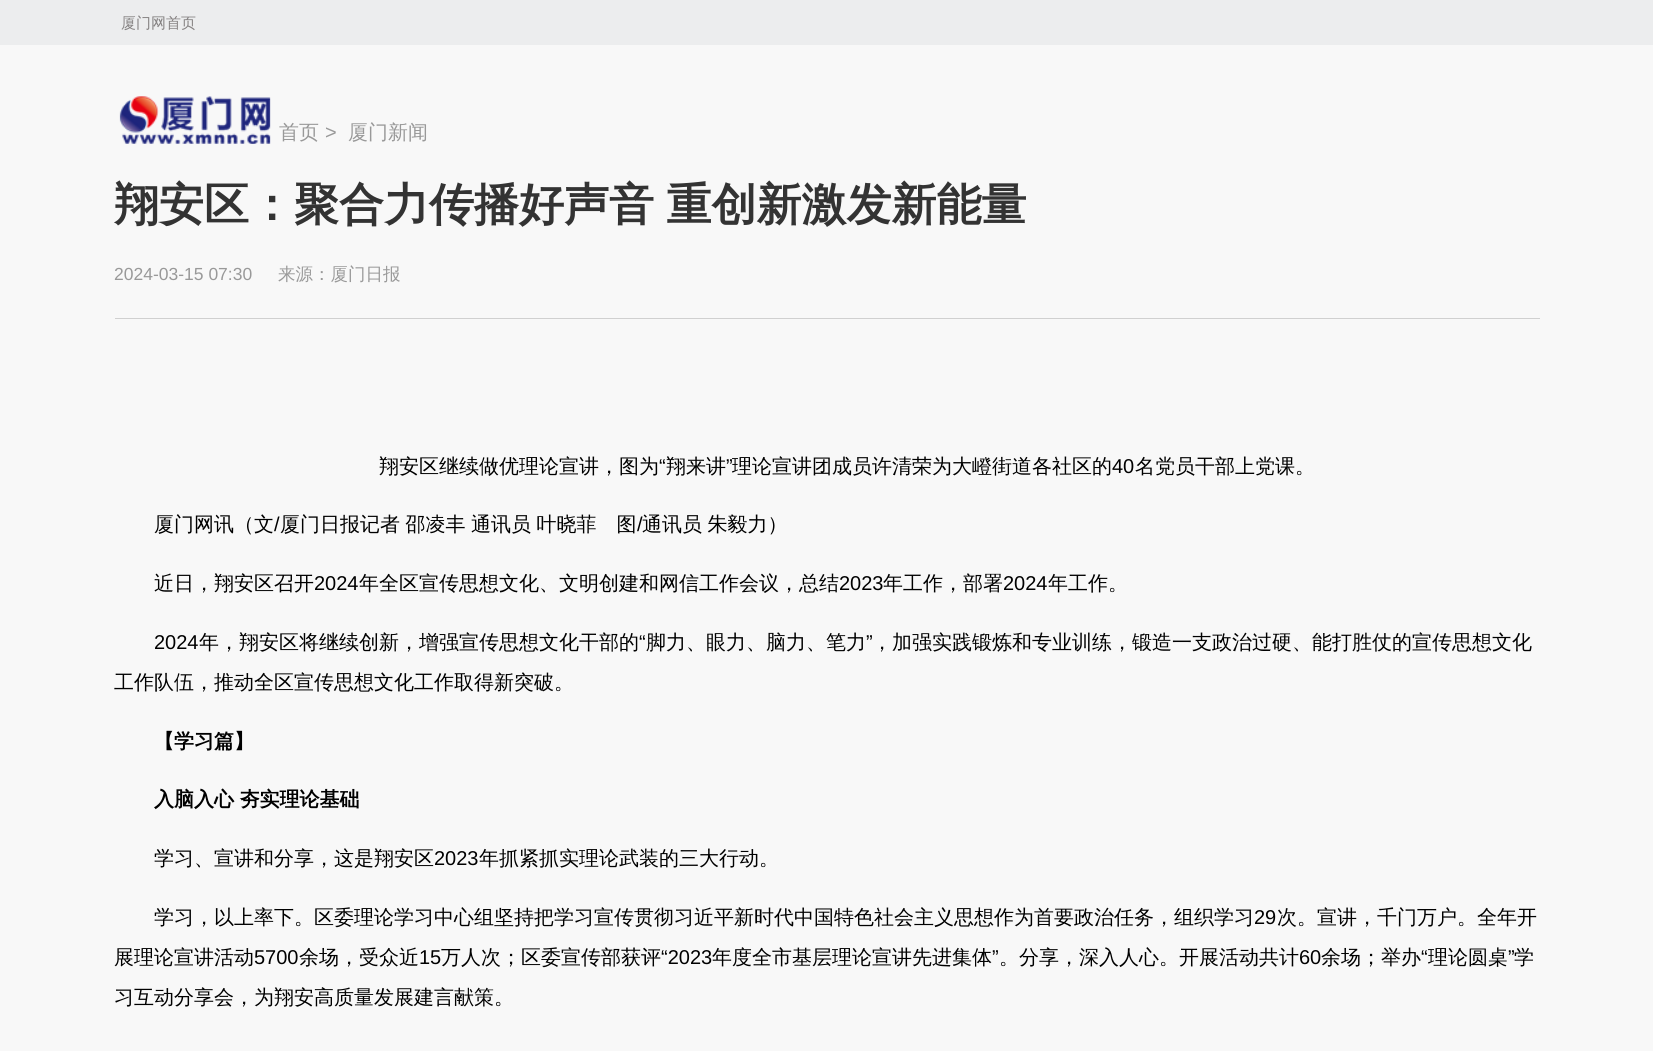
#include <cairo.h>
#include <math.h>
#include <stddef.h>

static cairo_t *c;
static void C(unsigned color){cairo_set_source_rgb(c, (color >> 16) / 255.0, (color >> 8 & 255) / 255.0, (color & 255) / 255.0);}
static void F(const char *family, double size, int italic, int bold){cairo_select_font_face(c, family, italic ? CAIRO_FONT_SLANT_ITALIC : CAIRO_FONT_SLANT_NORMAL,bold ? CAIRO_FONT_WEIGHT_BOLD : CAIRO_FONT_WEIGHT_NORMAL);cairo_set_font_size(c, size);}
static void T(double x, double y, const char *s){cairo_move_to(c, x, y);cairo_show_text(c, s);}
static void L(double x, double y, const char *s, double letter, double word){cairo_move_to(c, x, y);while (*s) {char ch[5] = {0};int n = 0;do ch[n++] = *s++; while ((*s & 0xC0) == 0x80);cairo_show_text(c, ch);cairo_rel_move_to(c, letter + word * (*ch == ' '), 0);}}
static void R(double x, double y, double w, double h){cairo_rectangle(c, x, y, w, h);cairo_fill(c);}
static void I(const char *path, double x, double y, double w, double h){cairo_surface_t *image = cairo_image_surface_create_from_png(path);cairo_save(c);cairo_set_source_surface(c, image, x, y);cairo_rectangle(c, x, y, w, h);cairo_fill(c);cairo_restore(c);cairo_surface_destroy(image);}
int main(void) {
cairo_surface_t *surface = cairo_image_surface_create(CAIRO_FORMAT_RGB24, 1653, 1051);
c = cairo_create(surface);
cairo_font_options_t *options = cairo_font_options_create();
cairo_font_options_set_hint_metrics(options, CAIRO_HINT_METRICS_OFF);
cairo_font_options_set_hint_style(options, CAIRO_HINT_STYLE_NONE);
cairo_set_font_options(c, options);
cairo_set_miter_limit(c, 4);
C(0xf8f8f8);
cairo_paint(c);
C(0xecedee);
R(0,0,1653,45);
F("WenQuanYi Zen Hei Medium",15,0,0);
C(0x858282);
T(121,28,"厦门网首页");
I("1.png",119,96,152,48);
F("WenQuanYi Zen Hei Medium",20,0,0);
C(0x999999);
T(279,139,"首页");
F("Liberation Sans",20,0,0);
T(325,139,">");
F("WenQuanYi Zen Hei Medium",20,0,0);
T(348,139,"厦门新闻");
F("WenQuanYi Zen Hei",45,0,1);
C(0x333333);
L(114,220,"翔安区：聚合力传播好声音 重创新激发新能量",0,-1);
F("Liberation Sans",17.5,0,0);
C(0x999999);
T(114,280,"2024-03-15 07:30");
F("WenQuanYi Zen Hei Medium",17.5,0,0);
T(278,280,"来源：厦门日报");
C(0xd0d0d0);
R(115,318,1425,1);
F("WenQuanYi Zen Hei Medium",20,0,0);
C(0x000000);
T(379,473,"翔安区继续做优理论宣讲，图为");
F("Liberation Sans",20,0,0);
T(659,473,"“");
F("WenQuanYi Zen Hei Medium",20,0,0);
T(666,473,"翔来讲");
F("Liberation Sans",20,0,0);
T(726,473,"”");
F("WenQuanYi Zen Hei Medium",20,0,0);
T(732,473,"理论宣讲团成员许清荣为大嶝街道各社区的");
F("Liberation Sans",20,0,0);
T(1112,473,"40");
F("WenQuanYi Zen Hei Medium",20,0,0);
T(1135,473,"名党员干部上党课。");
T(154,531,"厦门网讯（文");
F("Liberation Sans",20,0,0);
T(274,531,"/");
F("WenQuanYi Zen Hei Medium",20,0,0);
L(280,531,"厦门日报记者 邵凌丰 通讯员 叶晓菲　图",0,-.5);
F("Liberation Sans",20,0,0);
T(637,531,"/");
F("WenQuanYi Zen Hei Medium",20,0,0);
L(642,531,"通讯员 朱毅力）",0,-.5);
T(154,590,"近日，翔安区召开");
F("Liberation Sans",20,0,0);
T(314,590,"2024");
F("WenQuanYi Zen Hei Medium",20,0,0);
T(359,590,"年全区宣传思想文化、文明创建和网信工作会议，总结");
F("Liberation Sans",20,0,0);
T(839,590,"2023");
F("WenQuanYi Zen Hei Medium",20,0,0);
T(883,590,"年工作，部署");
F("Liberation Sans",20,0,0);
T(1003,590,"2024");
F("WenQuanYi Zen Hei Medium",20,0,0);
T(1048,590,"年工作。");
F("Liberation Sans",20,0,0);
T(154,649,"2024");
F("WenQuanYi Zen Hei Medium",20,0,0);
T(199,649,"年，翔安区将继续创新，增强宣传思想文化干部的");
F("Liberation Sans",20,0,0);
T(639,649,"“");
F("WenQuanYi Zen Hei Medium",20,0,0);
T(646,649,"脚力、眼力、脑力、笔力");
F("Liberation Sans",20,0,0);
T(866,649,"”");
F("WenQuanYi Zen Hei Medium",20,0,0);
T(872,649,"，加强实践锻炼和专业训练，锻造一支政治过硬、能打胜仗的宣传思想文化");
T(114,689,"工作队伍，推动全区宣传思想文化工作取得新突破。");
F("WenQuanYi Zen Hei",20,0,1);
T(154,748,"【学习篇】");
L(154,806,"入脑入心 夯实理论基础",0,-.5);
F("WenQuanYi Zen Hei Medium",20,0,0);
T(154,865,"学习、宣讲和分享，这是翔安区");
F("Liberation Sans",20,0,0);
T(434,865,"2023");
F("WenQuanYi Zen Hei Medium",20,0,0);
T(479,865,"年抓紧抓实理论武装的三大行动。");
T(154,924,"学习，以上率下。区委理论学习中心组坚持把学习宣传贯彻习近平新时代中国特色社会主义思想作为首要政治任务，组织学习");
F("Liberation Sans",20,0,0);
T(1254,924,"29");
F("WenQuanYi Zen Hei Medium",20,0,0);
T(1277,924,"次。宣讲，千门万户。全年开");
T(114,964,"展理论宣讲活动");
F("Liberation Sans",20,0,0);
T(254,964,"5700");
F("WenQuanYi Zen Hei Medium",20,0,0);
T(299,964,"余场，受众近");
F("Liberation Sans",20,0,0);
T(419,964,"15");
F("WenQuanYi Zen Hei Medium",20,0,0);
T(441,964,"万人次；区委宣传部获评");
F("Liberation Sans",20,0,0);
T(661,964,"“2023");
F("WenQuanYi Zen Hei Medium",20,0,0);
T(712,964,"年度全市基层理论宣讲先进集体");
F("Liberation Sans",20,0,0);
T(992,964,"”");
F("WenQuanYi Zen Hei Medium",20,0,0);
T(999,964,"。分享，深入人心。开展活动共计");
F("Liberation Sans",20,0,0);
T(1299,964,"60");
F("WenQuanYi Zen Hei Medium",20,0,0);
T(1321,964,"余场；举办");
F("Liberation Sans",20,0,0);
T(1421,964,"“");
F("WenQuanYi Zen Hei Medium",20,0,0);
T(1428,964,"理论圆桌");
F("Liberation Sans",20,0,0);
T(1508,964,"”");
F("WenQuanYi Zen Hei Medium",20,0,0);
T(1514,964,"学");
T(114,1004,"习互动分享会，为翔安高质量发展建言献策。");
cairo_surface_write_to_png(surface, "o.png");
cairo_font_options_destroy(options);
cairo_destroy(c);
cairo_surface_destroy(surface);
return 0;
}
